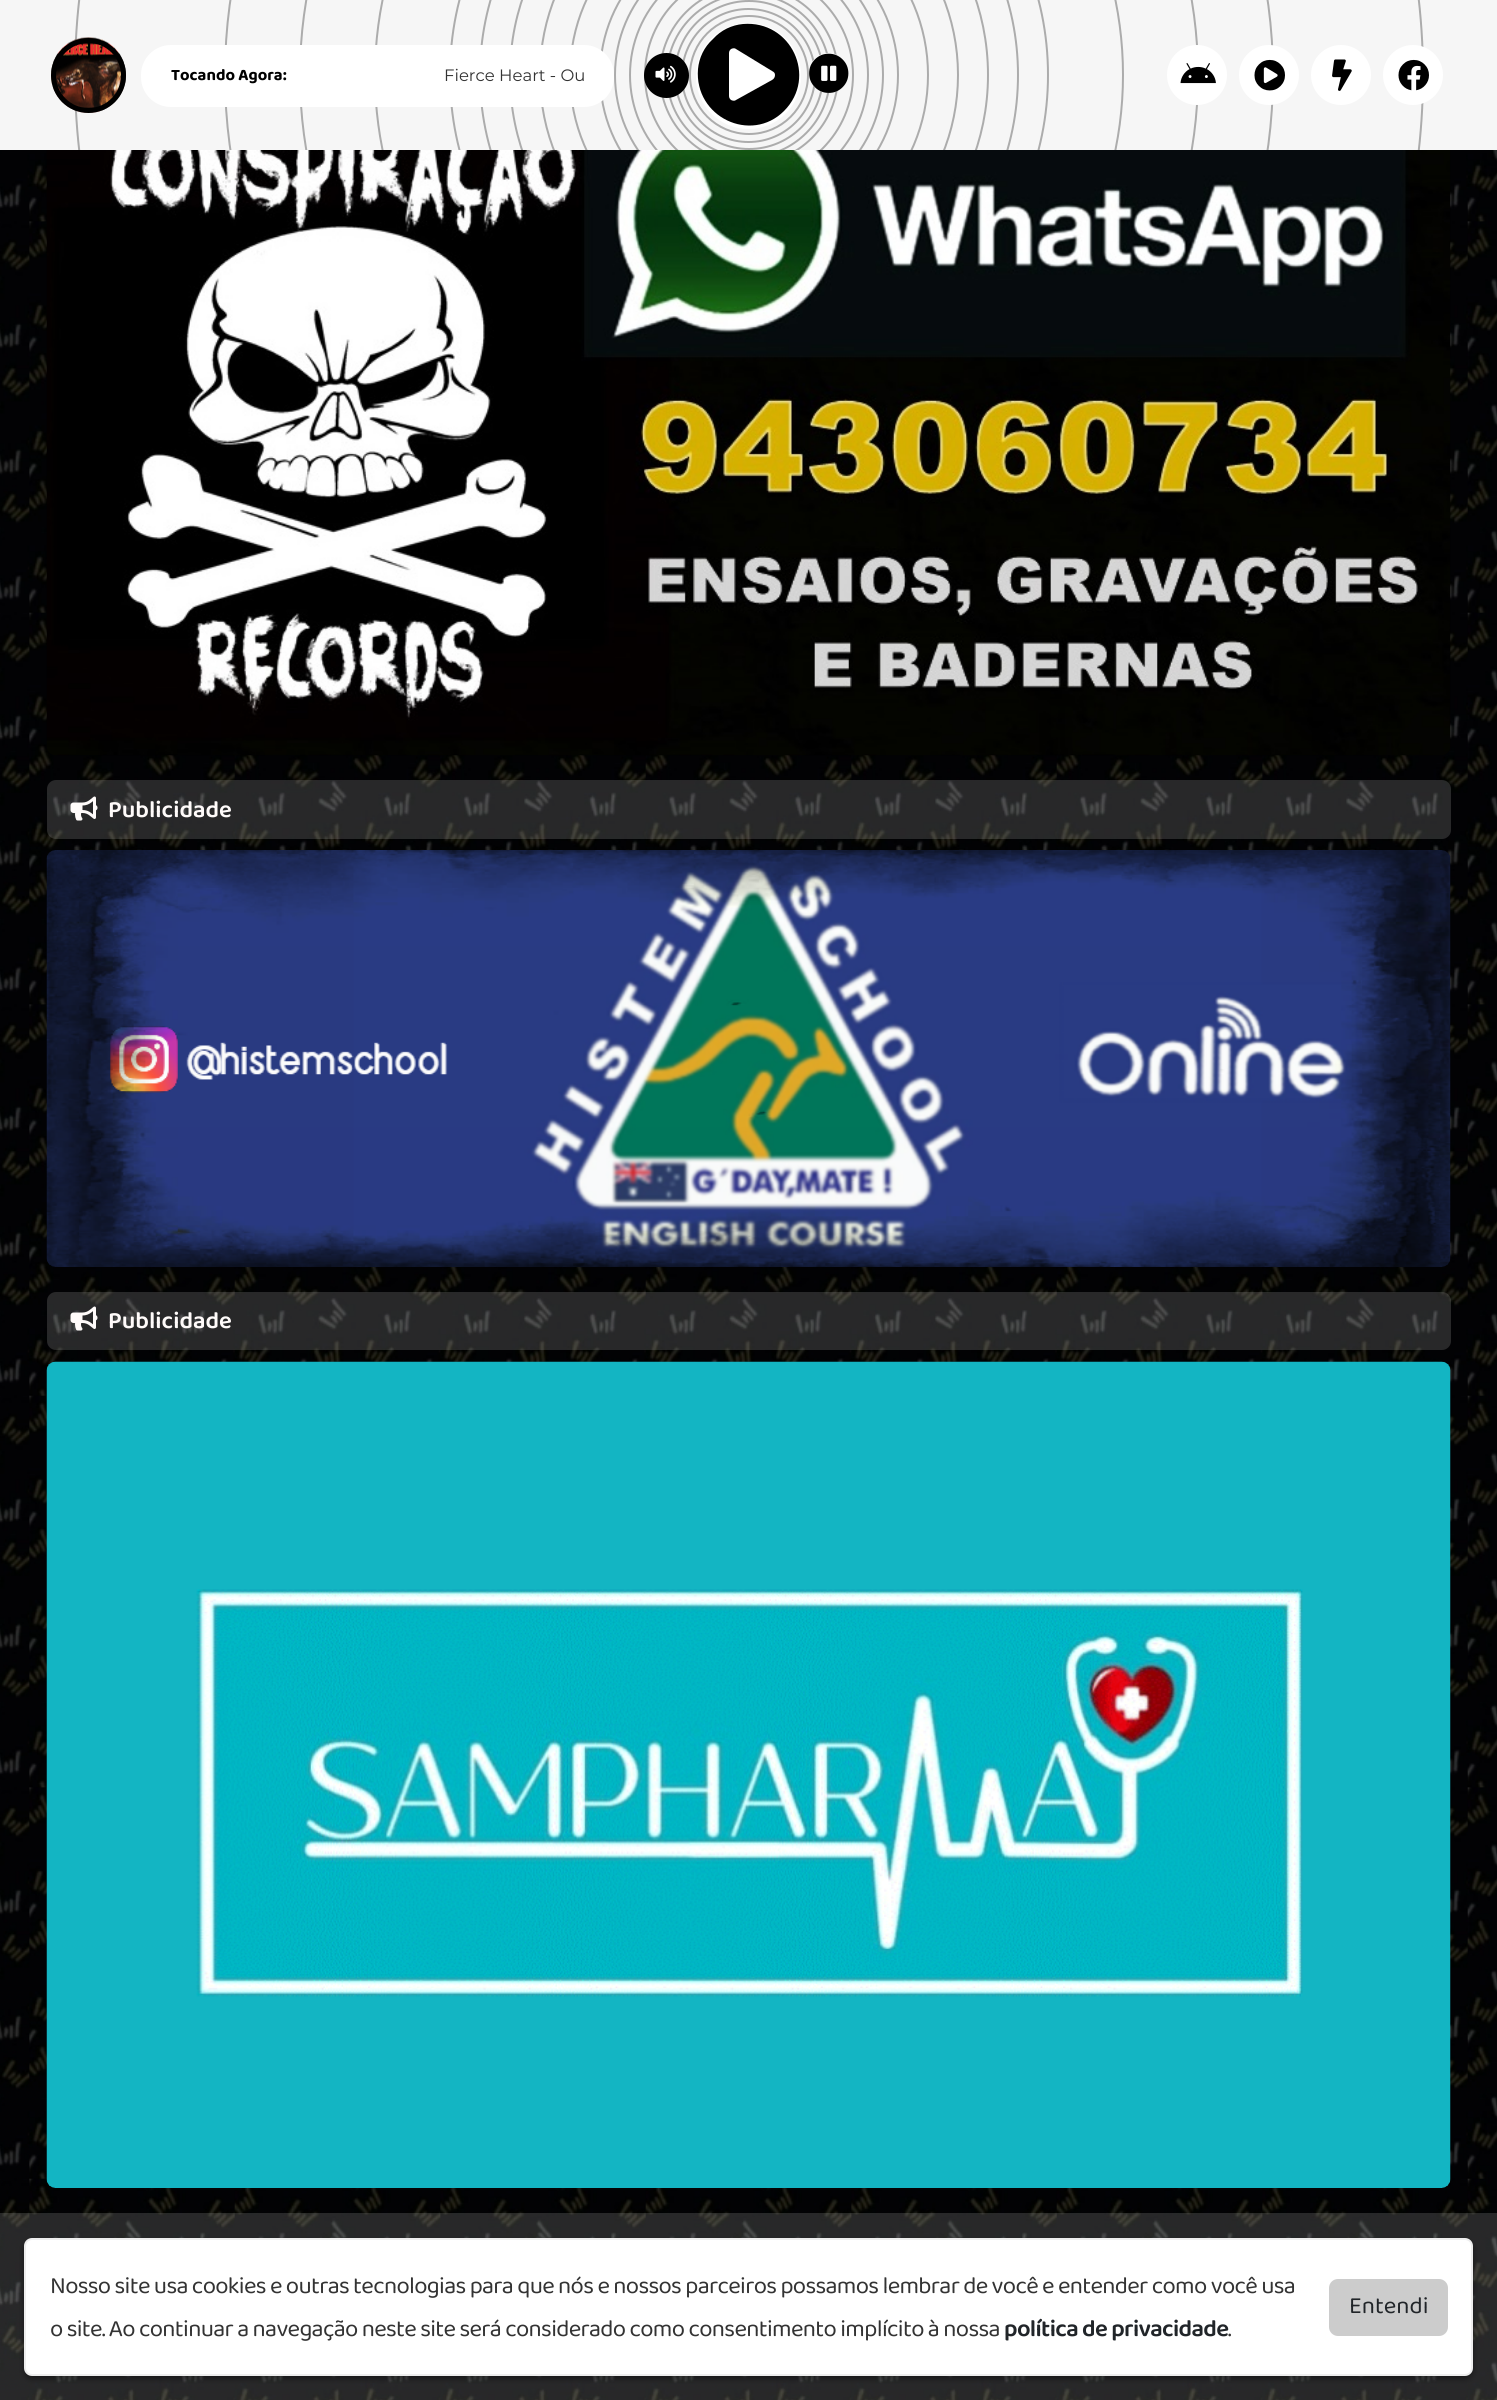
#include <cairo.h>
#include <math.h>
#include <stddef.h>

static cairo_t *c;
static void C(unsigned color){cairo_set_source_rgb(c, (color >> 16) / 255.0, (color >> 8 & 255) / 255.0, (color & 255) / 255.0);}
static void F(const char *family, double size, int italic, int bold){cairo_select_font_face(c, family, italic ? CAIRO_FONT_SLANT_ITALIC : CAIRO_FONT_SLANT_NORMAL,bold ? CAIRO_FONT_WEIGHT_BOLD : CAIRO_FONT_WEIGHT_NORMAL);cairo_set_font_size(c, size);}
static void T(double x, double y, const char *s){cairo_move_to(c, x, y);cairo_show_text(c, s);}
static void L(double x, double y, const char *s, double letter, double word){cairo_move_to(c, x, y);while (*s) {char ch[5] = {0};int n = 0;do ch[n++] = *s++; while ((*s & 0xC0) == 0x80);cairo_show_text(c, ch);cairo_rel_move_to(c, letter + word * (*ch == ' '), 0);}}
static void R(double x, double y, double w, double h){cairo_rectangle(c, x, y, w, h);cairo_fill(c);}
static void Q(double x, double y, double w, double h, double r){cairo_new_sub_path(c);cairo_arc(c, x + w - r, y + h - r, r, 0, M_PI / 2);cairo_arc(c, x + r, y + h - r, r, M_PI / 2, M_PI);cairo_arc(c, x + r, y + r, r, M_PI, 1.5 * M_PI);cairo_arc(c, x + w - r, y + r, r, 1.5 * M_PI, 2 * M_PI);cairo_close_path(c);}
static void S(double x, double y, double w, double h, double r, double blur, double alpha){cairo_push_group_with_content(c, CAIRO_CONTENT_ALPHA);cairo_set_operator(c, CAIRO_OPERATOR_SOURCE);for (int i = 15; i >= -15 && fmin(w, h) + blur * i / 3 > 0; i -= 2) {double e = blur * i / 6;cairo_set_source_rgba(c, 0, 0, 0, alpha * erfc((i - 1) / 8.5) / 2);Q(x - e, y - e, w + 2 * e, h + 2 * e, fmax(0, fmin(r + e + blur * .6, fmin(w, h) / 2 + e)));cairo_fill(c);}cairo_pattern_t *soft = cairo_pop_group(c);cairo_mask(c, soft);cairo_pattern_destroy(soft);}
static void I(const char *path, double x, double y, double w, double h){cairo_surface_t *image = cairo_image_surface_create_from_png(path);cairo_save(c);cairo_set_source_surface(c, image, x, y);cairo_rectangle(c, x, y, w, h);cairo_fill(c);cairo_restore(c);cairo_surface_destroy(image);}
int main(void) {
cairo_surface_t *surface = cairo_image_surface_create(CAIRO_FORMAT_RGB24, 1497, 2400);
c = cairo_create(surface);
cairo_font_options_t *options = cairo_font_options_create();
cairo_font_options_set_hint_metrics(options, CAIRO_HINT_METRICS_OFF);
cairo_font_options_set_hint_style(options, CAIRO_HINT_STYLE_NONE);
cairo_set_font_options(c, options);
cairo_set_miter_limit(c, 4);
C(0xffffff);
cairo_paint(c);
C(0xf6f6f6);
R(0,0,1497,150);
cairo_arc(c,749,75,59,0,2 * M_PI);
C(0xacacac);
cairo_stroke(c);
cairo_arc(c,748.5,75.5,66.5,0,2 * M_PI);
cairo_stroke(c);
cairo_arc(c,749,75,74,0,2 * M_PI);
cairo_stroke(c);
I("8.png",0,150,1497,2250);
I("9.png",46,150,1405,606);
cairo_save(c);
cairo_rectangle(c,0,0,1497,150);
cairo_clip(c);
cairo_arc(c,748.5,75.5,81.5,0,2 * M_PI);
cairo_stroke(c);
cairo_arc(c,749,75,89,0,2 * M_PI);
cairo_stroke(c);
cairo_arc(c,749,75,104,0,2 * M_PI);
cairo_stroke(c);
cairo_arc(c,749,75,119,0,2 * M_PI);
cairo_stroke(c);
cairo_arc(c,749,75,134,0,2 * M_PI);
cairo_stroke(c);
cairo_arc(c,749,75,149,0,2 * M_PI);
cairo_stroke(c);
cairo_arc(c,749,75,179,0,2 * M_PI);
cairo_stroke(c);
cairo_arc(c,749,75,209,0,2 * M_PI);
cairo_stroke(c);
cairo_arc(c,749,75,239,0,2 * M_PI);
cairo_stroke(c);
cairo_arc(c,749,75,269,0,2 * M_PI);
cairo_stroke(c);
cairo_arc(c,749,75,299,0,2 * M_PI);
cairo_stroke(c);
cairo_arc(c,749,75,374,0,2 * M_PI);
cairo_stroke(c);
cairo_arc(c,749,75,449,0,2 * M_PI);
cairo_stroke(c);
cairo_arc(c,749,75,524,0,2 * M_PI);
cairo_stroke(c);
cairo_arc(c,749,75,674,0,2 * M_PI);
cairo_stroke(c);
cairo_restore(c);
I("1.png",51,37,75,76);
cairo_arc(c,88.5,75.5,35,0,2 * M_PI);
C(0x000000);
cairo_set_line_width(c,5);
cairo_stroke(c);
C(0xffffff);
Q(141,45,473,62,30);
cairo_fill(c);
F("Baloo 2",16.5,0,1);
C(0x000000);
T(171,80,"Tocando Agora:");
F("Montserrat",16.5,0,0);
C(0x333333);
T(444,81,"Fierce Heart - Ou");
C(0x000000);
cairo_new_path(c);
cairo_arc(c,666.5,75.5,22.5,0,2 * M_PI);
cairo_fill(c);
I("2.png",655,65,21,18);
C(0xffffff);
Q(696,23,105,106,52.5);
cairo_fill(c);
C(0x000000);
cairo_new_path(c);
cairo_move_to(c,713,39);
cairo_curve_to(c,721,30,732,25,743,24);
cairo_curve_to(c,791,20,818,77,784,111);
cairo_curve_to(c,751,144,694,117,698,69);
cairo_curve_to(c,699,58,704,47,713,39);
cairo_close_path(c);
cairo_move_to(c,772,80);
cairo_curve_to(c,774,79,775,77,775,75);
cairo_curve_to(c,775,73,774,72,772,71);
cairo_line_to(c,736,49);
cairo_curve_to(c,735,48,733,48,731,49);
cairo_curve_to(c,730,50,729,51,729,53);
cairo_line_to(c,729,96);
cairo_curve_to(c,729,98,730,99,731,100);
cairo_curve_to(c,733,101,735,101,736,100);
cairo_close_path(c);
cairo_fill(c);
C(0xffffff);
Q(809,53,39,40,19.5);
cairo_fill(c);
I("3.png",809,53,40,40);
cairo_arc(c,1197,75,30,0,2 * M_PI);
cairo_fill(c);
I("4.png",1180,63,36,21);
cairo_arc(c,1269,75,30,0,2 * M_PI);
cairo_fill(c);
I("5.png",1254,59,31,32);
cairo_arc(c,1341,75,30,0,2 * M_PI);
cairo_fill(c);
I("6.png",1332,59,20,32);
cairo_arc(c,1413,75,30,0,2 * M_PI);
cairo_fill(c);
I("7.png",1398,59,31,32);
cairo_set_source_rgba(c,1,1,1,0.15);
Q(47,780,1404,59,9);
cairo_fill(c);
I("10.png",70,796,28,25);
F("Baloo 2 SemiBold",24,0,0);
C(0xfffbfa);
T(108,817,"Publicidade");
I("11.png",46,850,1405,417);
cairo_set_source_rgba(c,1,1,1,0.15);
Q(47,1292,1404,58,9);
cairo_fill(c);
I("12.png",70,1306,28,25);
C(0xfffbfa);
T(108,1328,"Publicidade");
I("13.png",46,1361,1405,827);
cairo_set_source_rgba(c,1,1,1,0.15);
R(0,2213,1497,187);
C(0x000000);
S(24,2241,1449,138,8,3,.4);
C(0xffffff);
Q(25,2239,1447,136,7);
cairo_fill_preserve(c);
C(0xeeeeee);
cairo_set_line_width(c,2);
cairo_stroke(c);
F("Baloo 2",24,0,0);
C(0x333333);
L(50,2293,"Nosso site usa cookies e outras tecnologias para que nós e nossos parceiros possamos lembrar de você e entender como você usa",-.68,0);
L(50,2336,"o site. Ao continuar a navegação neste site será considerado como consentimento implícito à nossa",-.68,0);
F("Baloo 2 SemiBold",24,0,0);
C(0x212529);
L(1004,2336,"política de privacidade",-.68,0);
F("Baloo 2",24,0,0);
C(0x333333);
L(1228,2336,".",-.68,0);
C(0xcccccc);
Q(1329,2279,119,57,9);
cairo_fill(c);
C(0x212529);
T(1349,2313,"Entendi");
cairo_surface_write_to_png(surface, "o.png");
cairo_font_options_destroy(options);
cairo_destroy(c);
cairo_surface_destroy(surface);
return 0;
}
